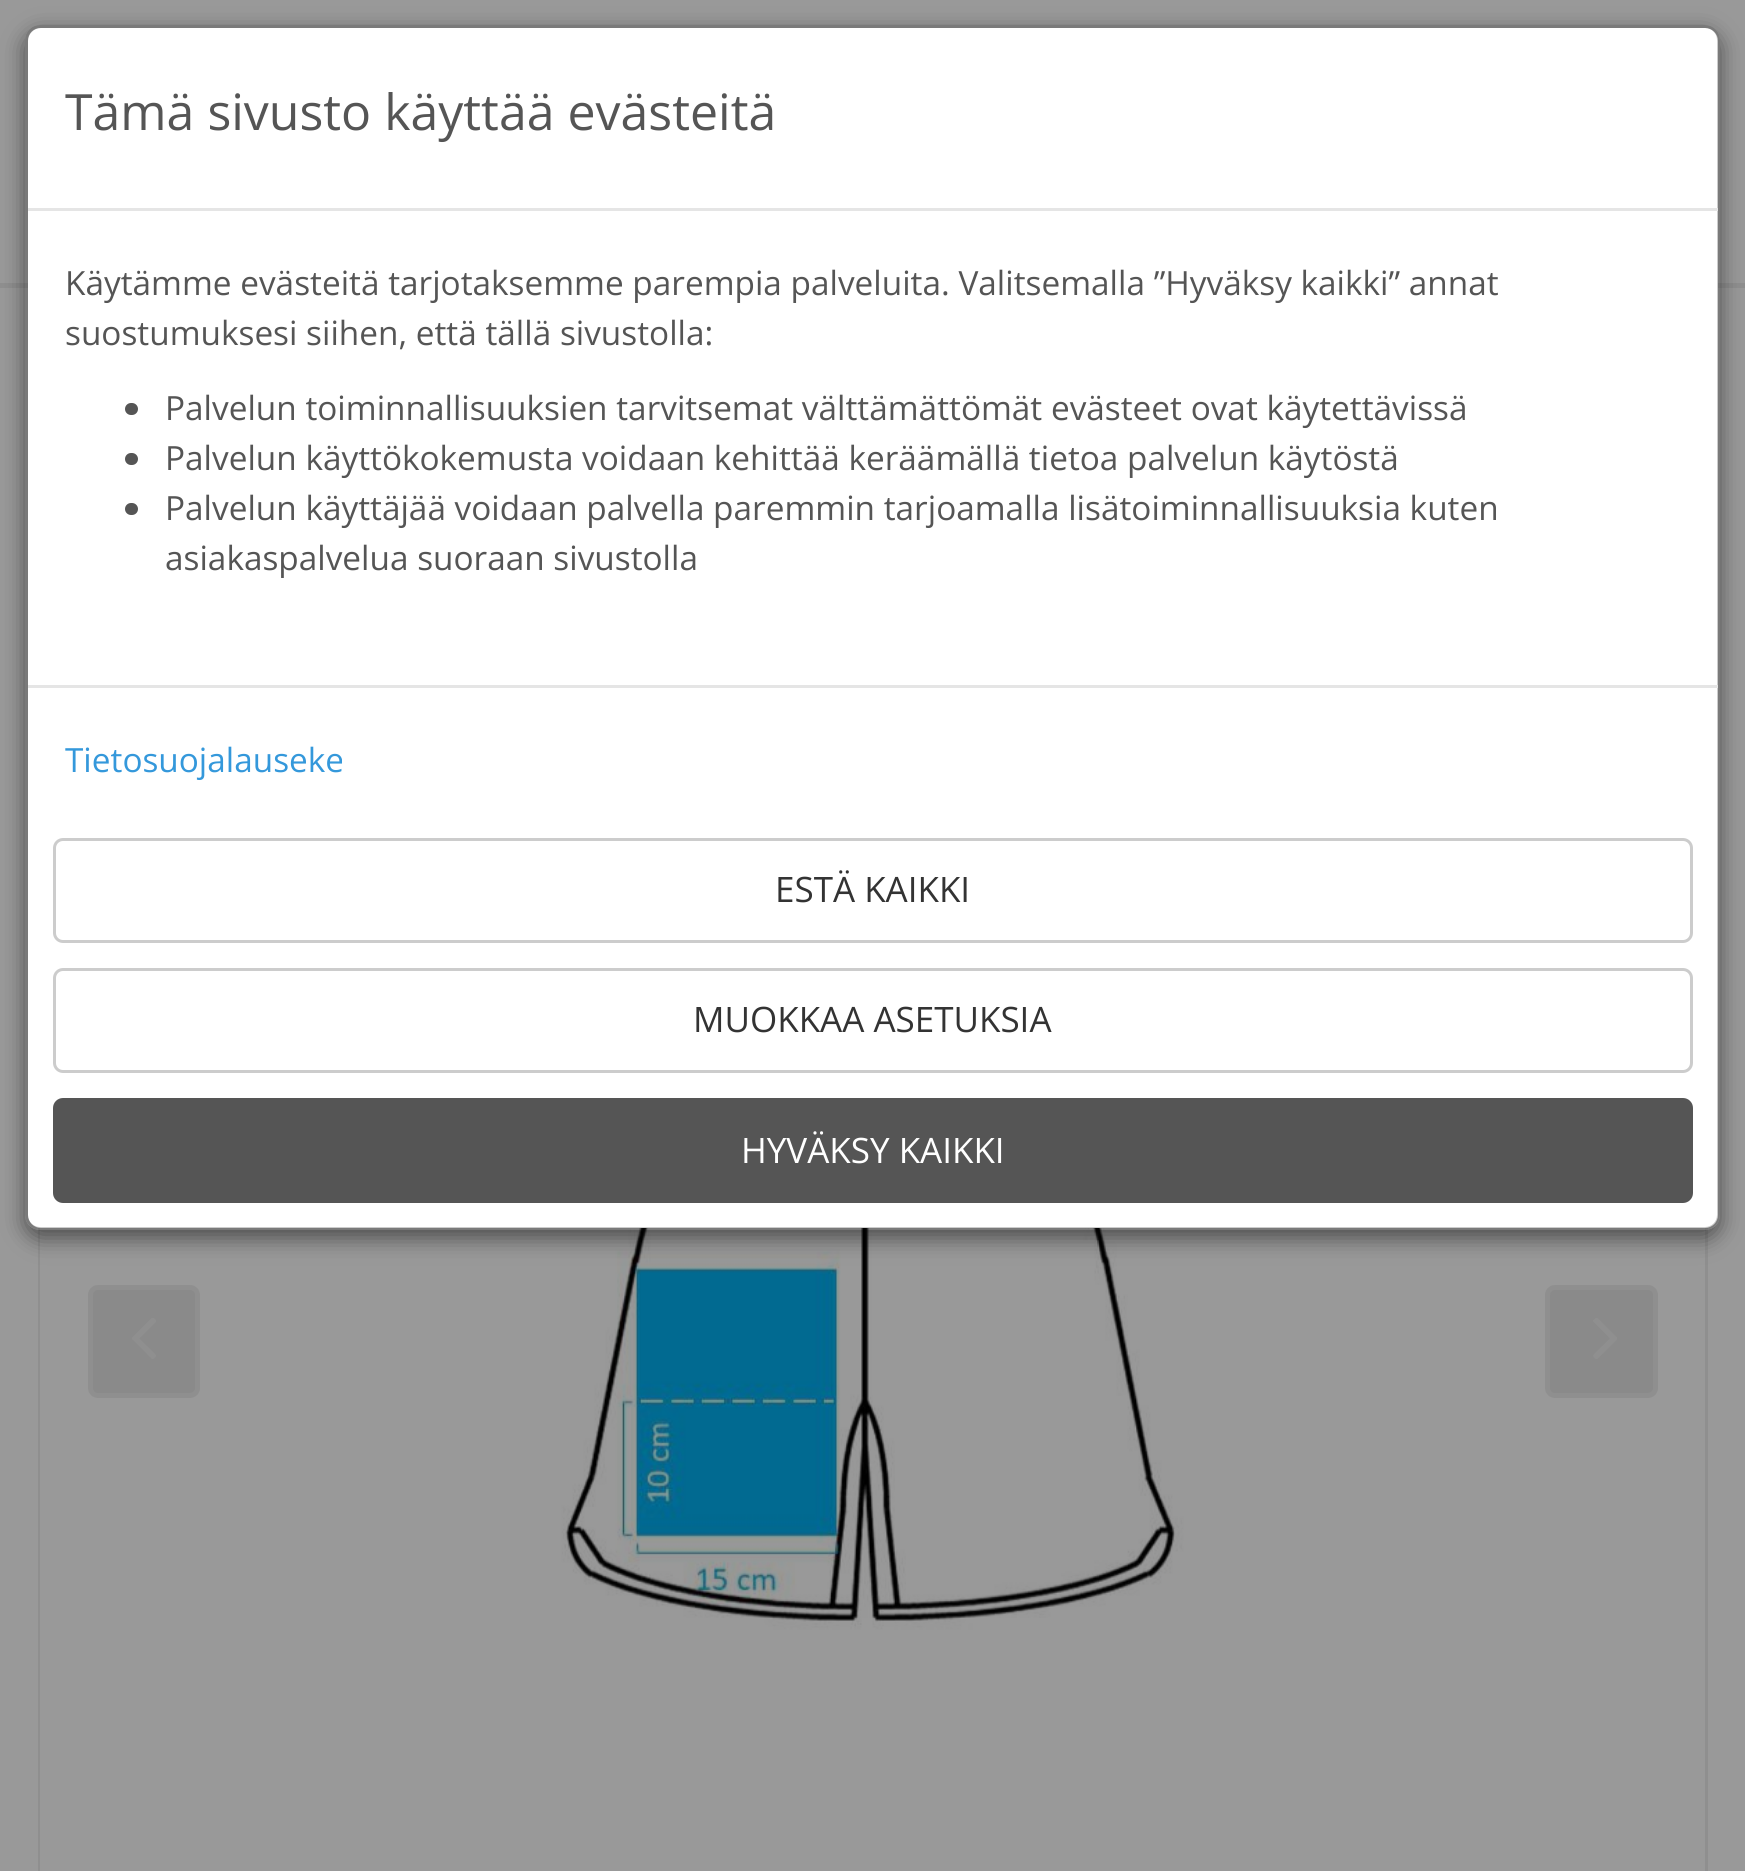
#include <cairo.h>
#include <math.h>
#include <stddef.h>

static cairo_t *c;
static void C(unsigned color){cairo_set_source_rgb(c, (color >> 16) / 255.0, (color >> 8 & 255) / 255.0, (color & 255) / 255.0);}
static void F(const char *family, double size, int italic, int bold){cairo_select_font_face(c, family, italic ? CAIRO_FONT_SLANT_ITALIC : CAIRO_FONT_SLANT_NORMAL,bold ? CAIRO_FONT_WEIGHT_BOLD : CAIRO_FONT_WEIGHT_NORMAL);cairo_set_font_size(c, size);}
static void T(double x, double y, const char *s){cairo_move_to(c, x, y);cairo_show_text(c, s);}
static void R(double x, double y, double w, double h){cairo_rectangle(c, x, y, w, h);cairo_fill(c);}
static void Q(double x, double y, double w, double h, double r){cairo_new_sub_path(c);cairo_arc(c, x + w - r, y + h - r, r, 0, M_PI / 2);cairo_arc(c, x + r, y + h - r, r, M_PI / 2, M_PI);cairo_arc(c, x + r, y + r, r, M_PI, 1.5 * M_PI);cairo_arc(c, x + w - r, y + r, r, 1.5 * M_PI, 2 * M_PI);cairo_close_path(c);}
static void S(double x, double y, double w, double h, double r, double blur, double alpha){cairo_push_group_with_content(c, CAIRO_CONTENT_ALPHA);cairo_set_operator(c, CAIRO_OPERATOR_SOURCE);for (int i = 15; i >= -15 && fmin(w, h) + blur * i / 3 > 0; i -= 2) {double e = blur * i / 6;cairo_set_source_rgba(c, 0, 0, 0, alpha * erfc((i - 1) / 8.5) / 2);Q(x - e, y - e, w + 2 * e, h + 2 * e, fmax(0, fmin(r + e + blur * .6, fmin(w, h) / 2 + e)));cairo_fill(c);}cairo_pattern_t *soft = cairo_pop_group(c);cairo_mask(c, soft);cairo_pattern_destroy(soft);}
static void I(const char *path, double x, double y, double w, double h){cairo_surface_t *image = cairo_image_surface_create_from_png(path);cairo_save(c);cairo_set_source_surface(c, image, x, y);cairo_rectangle(c, x, y, w, h);cairo_fill(c);cairo_restore(c);cairo_surface_destroy(image);}
int main(void) {
cairo_surface_t *surface = cairo_image_surface_create(CAIRO_FORMAT_RGB24, 1745, 1871);
c = cairo_create(surface);
cairo_font_options_t *options = cairo_font_options_create();
cairo_font_options_set_hint_metrics(options, CAIRO_HINT_METRICS_OFF);
cairo_font_options_set_hint_style(options, CAIRO_HINT_STYLE_NONE);
cairo_set_font_options(c, options);
cairo_set_miter_limit(c, 4);
C(0x999999);
cairo_paint(c);
C(0x8f8f8f);
R(0,283,1745,5);
cairo_rectangle(c,39.5,784.5,1667,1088);
cairo_set_line_width(c,3);
cairo_stroke(c);
I("1.png",40,1227,1665,644);
cairo_save(c);
cairo_set_fill_rule(c,CAIRO_FILL_RULE_EVEN_ODD);
cairo_new_path(c);
cairo_move_to(c,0,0);
cairo_line_to(c,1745,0);
cairo_line_to(c,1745,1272);
cairo_line_to(c,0,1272);
cairo_close_path(c);
cairo_move_to(c,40,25);
cairo_line_to(c,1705,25);
cairo_curve_to(c,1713.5,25,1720,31.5,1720,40);
cairo_line_to(c,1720,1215);
cairo_curve_to(c,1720,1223.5,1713.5,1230,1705,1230);
cairo_line_to(c,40,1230);
cairo_curve_to(c,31.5,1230,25,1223.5,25,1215);
cairo_line_to(c,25,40);
cairo_curve_to(c,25,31.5,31.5,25,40,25);
cairo_close_path(c);
cairo_clip(c);
C(0x000000);
S(25,33,1695,1205,15,11,.5);
cairo_restore(c);
C(0xffffff);
Q(28,28,1690,1200,13);
cairo_fill(c);
Q(26.5,26.5,1692,1202,13.5);
cairo_set_source_rgba(c,0,0,0,0.2);
cairo_stroke(c);
C(0xe5e5e5);
R(28,208,1690,3);
F("Open Sans",50,0,0);
C(0x555555);
T(65,130,"Tämä sivusto käyttää evästeitä");
F("Open Sans",33.35,0,0);
T(65,295,"Käytämme evästeitä tarjotaksemme parempia palveluita. Valitsemalla ”Hyväksy kaikki” annat");
T(65,345,"suostumuksesi siihen, että tällä sivustolla:");
Q(125,403,13,12,6);
cairo_fill(c);
T(165,420,"Palvelun toiminnallisuuksien tarvitsemat välttämättömät evästeet ovat käytettävissä");
Q(125,453,13,12,6);
cairo_fill(c);
T(165,470,"Palvelun käyttökokemusta voidaan kehittää keräämällä tietoa palvelun käytöstä");
Q(125,503,13,12,6);
cairo_fill(c);
T(165,520,"Palvelun käyttäjää voidaan palvella paremmin tarjoamalla lisätoiminnallisuuksia kuten");
T(165,570,"asiakaspalvelua suoraan sivustolla");
C(0xe5e5e5);
R(28,685,1690,3);
C(0x3498db);
T(65,772,"Tietosuojalauseke");
Q(54.5,839.5,1637,102,8.5);
C(0xcccccc);
cairo_stroke(c);
F("Open Sans",35,0,0);
C(0x333333);
T(775,902,"ESTÄ KAIKKI");
Q(54.5,969.5,1637,102,8.5);
C(0xcccccc);
cairo_stroke(c);
C(0x333333);
T(693,1032,"MUOKKAA ASETUKSIA");
C(0x555555);
Q(53,1098,1640,105,10);
cairo_fill(c);
C(0xffffff);
T(741,1163,"HYVÄKSY KAIKKI");
C(0x8a8a8a);
Q(90.5,1287.5,107,108,7.5);
cairo_fill_preserve(c);
C(0x8f8f8f);
cairo_set_line_width(c,5);
cairo_stroke(c);
I("2.png",132,1318,24,41);
C(0x8a8a8a);
Q(1547.5,1287.5,108,108,7.5);
cairo_fill_preserve(c);
C(0x8f8f8f);
cairo_stroke(c);
I("3.png",1593,1318,24,41);
cairo_surface_write_to_png(surface, "o.png");
cairo_font_options_destroy(options);
cairo_destroy(c);
cairo_surface_destroy(surface);
return 0;
}
